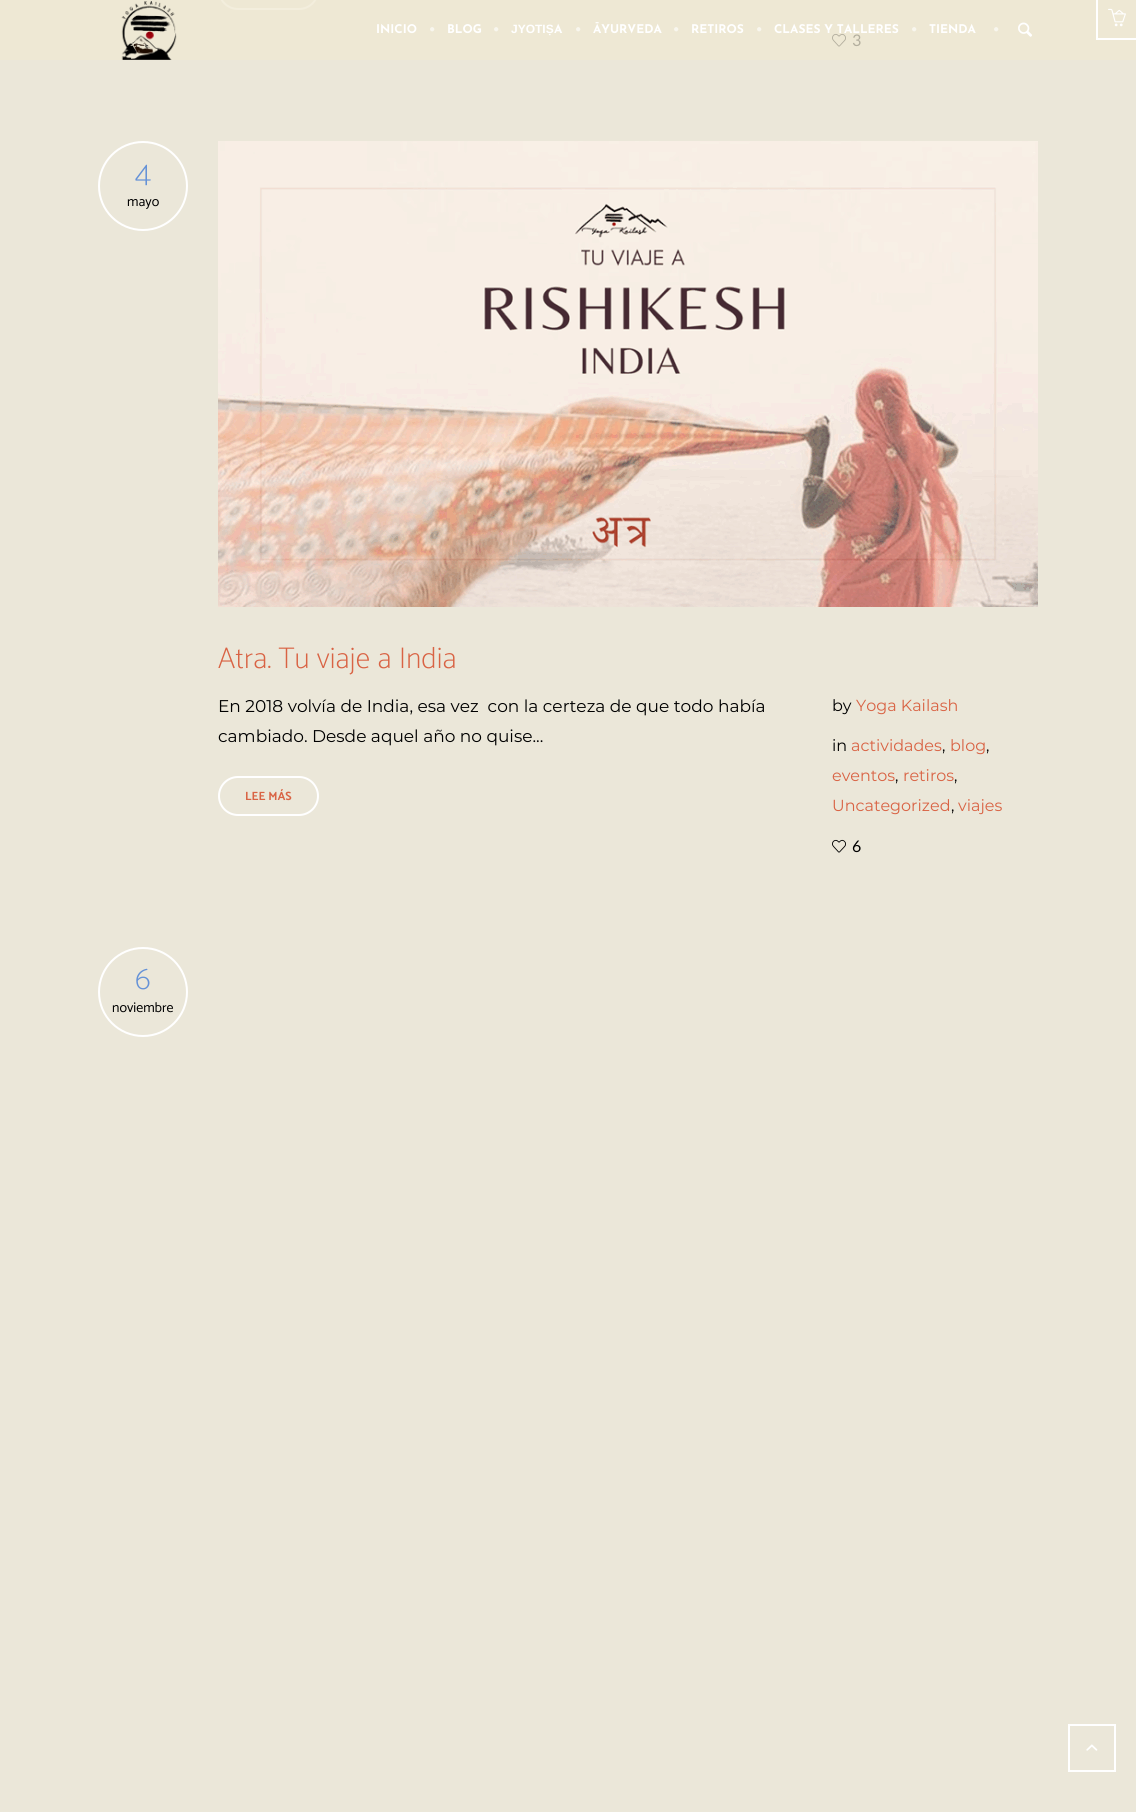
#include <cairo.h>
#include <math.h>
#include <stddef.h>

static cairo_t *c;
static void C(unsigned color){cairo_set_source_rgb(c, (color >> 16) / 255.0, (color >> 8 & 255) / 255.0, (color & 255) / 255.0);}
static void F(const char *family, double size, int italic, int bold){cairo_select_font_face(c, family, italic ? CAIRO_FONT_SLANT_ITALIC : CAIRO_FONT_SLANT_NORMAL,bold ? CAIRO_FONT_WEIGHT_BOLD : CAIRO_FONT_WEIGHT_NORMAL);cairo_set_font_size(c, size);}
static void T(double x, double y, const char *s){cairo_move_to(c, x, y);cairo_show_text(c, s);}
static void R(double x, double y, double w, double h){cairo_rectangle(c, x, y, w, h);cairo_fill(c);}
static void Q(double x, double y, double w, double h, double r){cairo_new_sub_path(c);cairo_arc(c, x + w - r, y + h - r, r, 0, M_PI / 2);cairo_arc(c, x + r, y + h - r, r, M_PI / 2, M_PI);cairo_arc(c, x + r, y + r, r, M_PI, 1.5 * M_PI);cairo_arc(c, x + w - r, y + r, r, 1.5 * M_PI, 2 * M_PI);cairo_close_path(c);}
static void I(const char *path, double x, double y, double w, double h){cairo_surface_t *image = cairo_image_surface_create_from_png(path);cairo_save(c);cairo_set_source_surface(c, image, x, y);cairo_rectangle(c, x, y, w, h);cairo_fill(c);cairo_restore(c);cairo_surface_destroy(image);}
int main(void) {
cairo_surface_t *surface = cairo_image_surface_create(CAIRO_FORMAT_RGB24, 1136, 1812);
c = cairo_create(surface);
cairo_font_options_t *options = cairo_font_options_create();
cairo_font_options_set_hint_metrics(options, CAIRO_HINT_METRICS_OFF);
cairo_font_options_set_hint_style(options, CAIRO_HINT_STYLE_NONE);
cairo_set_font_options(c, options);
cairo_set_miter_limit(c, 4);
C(0xebe7d9);
cairo_paint(c);
C(0xeee8d4);
R(0,0,1136,60);
I("1.png",121,1,56,59);
F("Josefin Sans",12,0,1);
C(0xffffff);
T(376,33,"INICIO");
I("2.png",430,27,5,5);
T(447,33,"BLOG");
I("2.png",494,27,5,5);
F("Liberation Sans",12,0,1);
T(511,33,"JYOTIṢ");
F("Josefin Sans",12,0,1);
T(554,33,"A");
I("2.png",576,27,5,5);
T(593,33,"ĀYURVEDA");
I("2.png",674,27,5,5);
T(691,33,"RETIROS");
I("2.png",757,27,5,5);
I("4.png",832,33,14,14);
T(774,33,"CLASES Y TALLERES");
I("2.png",912,27,5,5);
T(929,33,"TIENDA");
I("2.png",994,27,5,5);
I("3.png",1018,22,14,15);
Q(219,-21,99,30,19);
C(0xf3eedd);
cairo_stroke(c);
F("Lato",16,0,0);
C(0xb3ae9e);
T(852,46,"3");
cairo_new_path(c);
cairo_arc(c,143,186,44,0,2 * M_PI);
C(0xffffff);
cairo_stroke(c);
F("Catamaran Thin",32,0,0);
C(0x6592d7);
T(135,183,"4");
F("Catamaran",14,0,0);
C(0x000000);
T(127,206,"mayo");
I("5.png",218,141,820,466);
F("Catamaran Thin",30,0,0);
C(0xd96344);
T(218,668,"Atra. Tu viaje a India");
F("Montserrat",17,0,0);
C(0x000000);
T(218,712,"En 2018 volvía de India, esa vez  con la certeza de que todo había");
T(218,742,"cambiado. Desde aquel año no quise...");
Q(219,777,99,38,19);
C(0xffffff);
cairo_stroke(c);
F("Catamaran",12,0,1);
C(0xd96344);
T(245,800,"LEE MÁS");
F("Montserrat",16,0,0);
C(0x000000);
T(832,711,"by");
C(0xd96344);
T(856,711,"Yoga Kailash");
C(0x000000);
T(832,751,"in");
C(0xd96344);
T(851,751,"actividades");
C(0x000000);
T(942,751,",");
C(0xd96344);
T(950,751,"blog");
C(0x000000);
T(986,751,",");
C(0xd96344);
T(832,781,"eventos");
C(0x000000);
T(895,781,",");
C(0xd96344);
T(903,781,"retiros");
C(0x000000);
T(954,781,",");
C(0xd96344);
T(832,811,"Uncategorized");
C(0x000000);
T(951,811,",");
C(0xd96344);
T(958,811,"viajes");
I("6.png",832,839,14,14);
F("Lato",16,0,0);
C(0x000000);
T(852,852,"6");
cairo_new_path(c);
cairo_arc(c,143,992,44,0,2 * M_PI);
C(0xffffff);
cairo_stroke(c);
F("Catamaran Thin",32,0,0);
C(0x6592d7);
T(135,989,"6");
F("Catamaran",14,0,0);
C(0x000000);
T(112,1012,"noviembre");
cairo_rectangle(c,1069,1725,46,46);
C(0xffffff);
cairo_stroke(c);
I("7.png",1086,1744,12,7);
R(1096,38,40,2);
R(1096,0,2,40);
I("8.png",1108,8,18,19);
cairo_surface_write_to_png(surface, "o.png");
cairo_font_options_destroy(options);
cairo_destroy(c);
cairo_surface_destroy(surface);
return 0;
}
